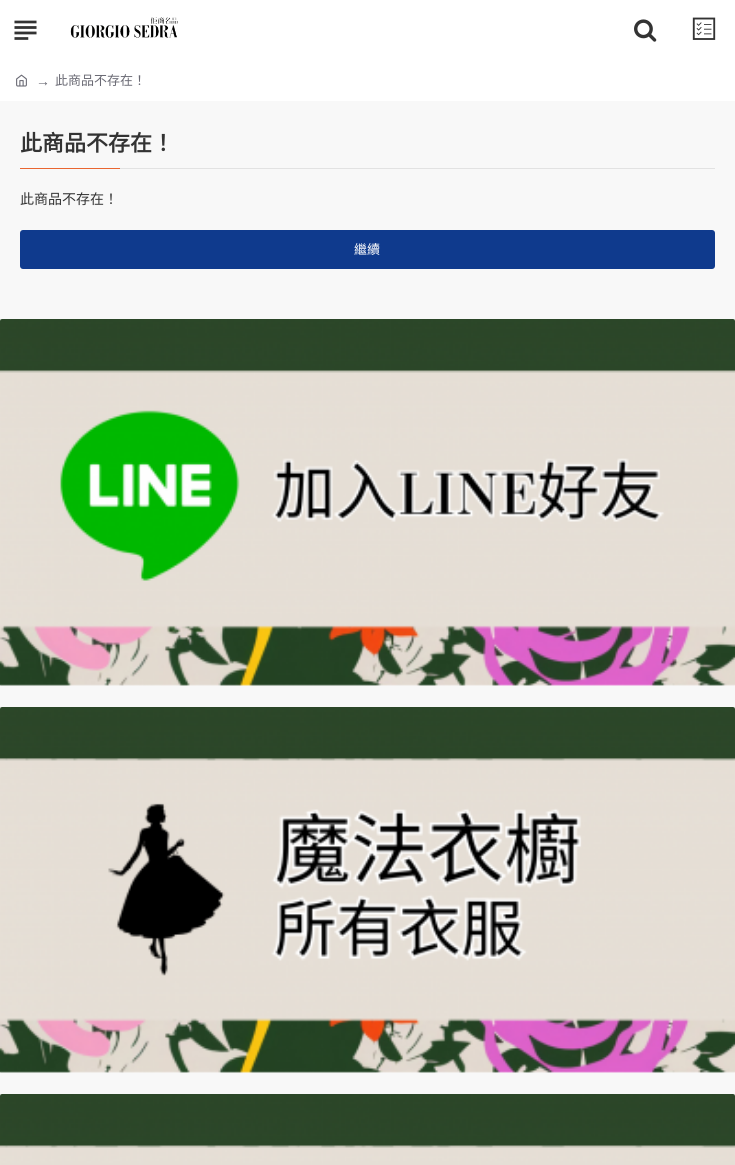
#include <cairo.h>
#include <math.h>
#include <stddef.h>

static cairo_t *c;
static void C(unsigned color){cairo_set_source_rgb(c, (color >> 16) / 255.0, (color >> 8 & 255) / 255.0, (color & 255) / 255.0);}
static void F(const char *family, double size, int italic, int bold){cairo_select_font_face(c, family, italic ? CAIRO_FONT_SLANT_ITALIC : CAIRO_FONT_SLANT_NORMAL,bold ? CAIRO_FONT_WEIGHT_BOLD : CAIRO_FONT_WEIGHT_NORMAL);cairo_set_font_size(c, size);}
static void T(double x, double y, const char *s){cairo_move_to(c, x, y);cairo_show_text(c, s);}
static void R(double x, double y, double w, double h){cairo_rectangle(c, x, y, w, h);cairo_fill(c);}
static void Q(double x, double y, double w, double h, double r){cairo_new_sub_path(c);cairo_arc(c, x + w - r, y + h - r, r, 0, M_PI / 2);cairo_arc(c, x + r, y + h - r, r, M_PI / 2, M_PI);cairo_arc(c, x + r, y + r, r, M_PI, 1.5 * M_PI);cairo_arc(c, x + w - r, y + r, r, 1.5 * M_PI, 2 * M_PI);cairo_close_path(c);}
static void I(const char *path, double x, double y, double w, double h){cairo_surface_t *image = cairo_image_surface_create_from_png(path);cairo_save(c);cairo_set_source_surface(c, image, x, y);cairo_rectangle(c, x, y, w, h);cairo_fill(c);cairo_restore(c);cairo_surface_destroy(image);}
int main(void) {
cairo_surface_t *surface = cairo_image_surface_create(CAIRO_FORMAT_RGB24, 735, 1165);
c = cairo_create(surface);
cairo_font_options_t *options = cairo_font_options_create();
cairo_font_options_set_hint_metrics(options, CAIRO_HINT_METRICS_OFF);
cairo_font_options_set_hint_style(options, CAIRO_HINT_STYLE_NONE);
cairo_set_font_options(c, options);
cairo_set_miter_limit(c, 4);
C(0xf8f8f8);
cairo_paint(c);
C(0xffffff);
R(0,0,735,101);
I("1.png",14,20,23,20);
I("2.png",634,19,23,23);
I("3.png",692,17,24,23);
I("4.png",70,17,108,21);
I("5.png",16,74,11,13);
F("Liberation Serif",14,0,0);
C(0x696973);
T(36,86,"→");
F("Noto Sans CJK TC",13,0,0);
T(55,85,"此商品不存在！");
C(0xe2e2e2);
R(120,168,595,1);
F("Noto Sans CJK TC",22,0,1);
C(0x333333);
T(20,151,"此商品不存在！");
C(0xe96631);
R(20,168,100,1);
F("Noto Sans CJK TC",14,0,0);
C(0x333333);
T(20,204,"此商品不存在！");
C(0x0f3a8d);
Q(20,230,695,39,3);
cairo_fill(c);
F("Noto Sans CJK TC",13,0,0);
C(0xffffff);
T(354,254,"繼續");
I("6.png",0,319,735,367);
I("7.png",0,707,735,366);
I("8.png",0,1094,735,71);
cairo_surface_write_to_png(surface, "o.png");
cairo_font_options_destroy(options);
cairo_destroy(c);
cairo_surface_destroy(surface);
return 0;
}
